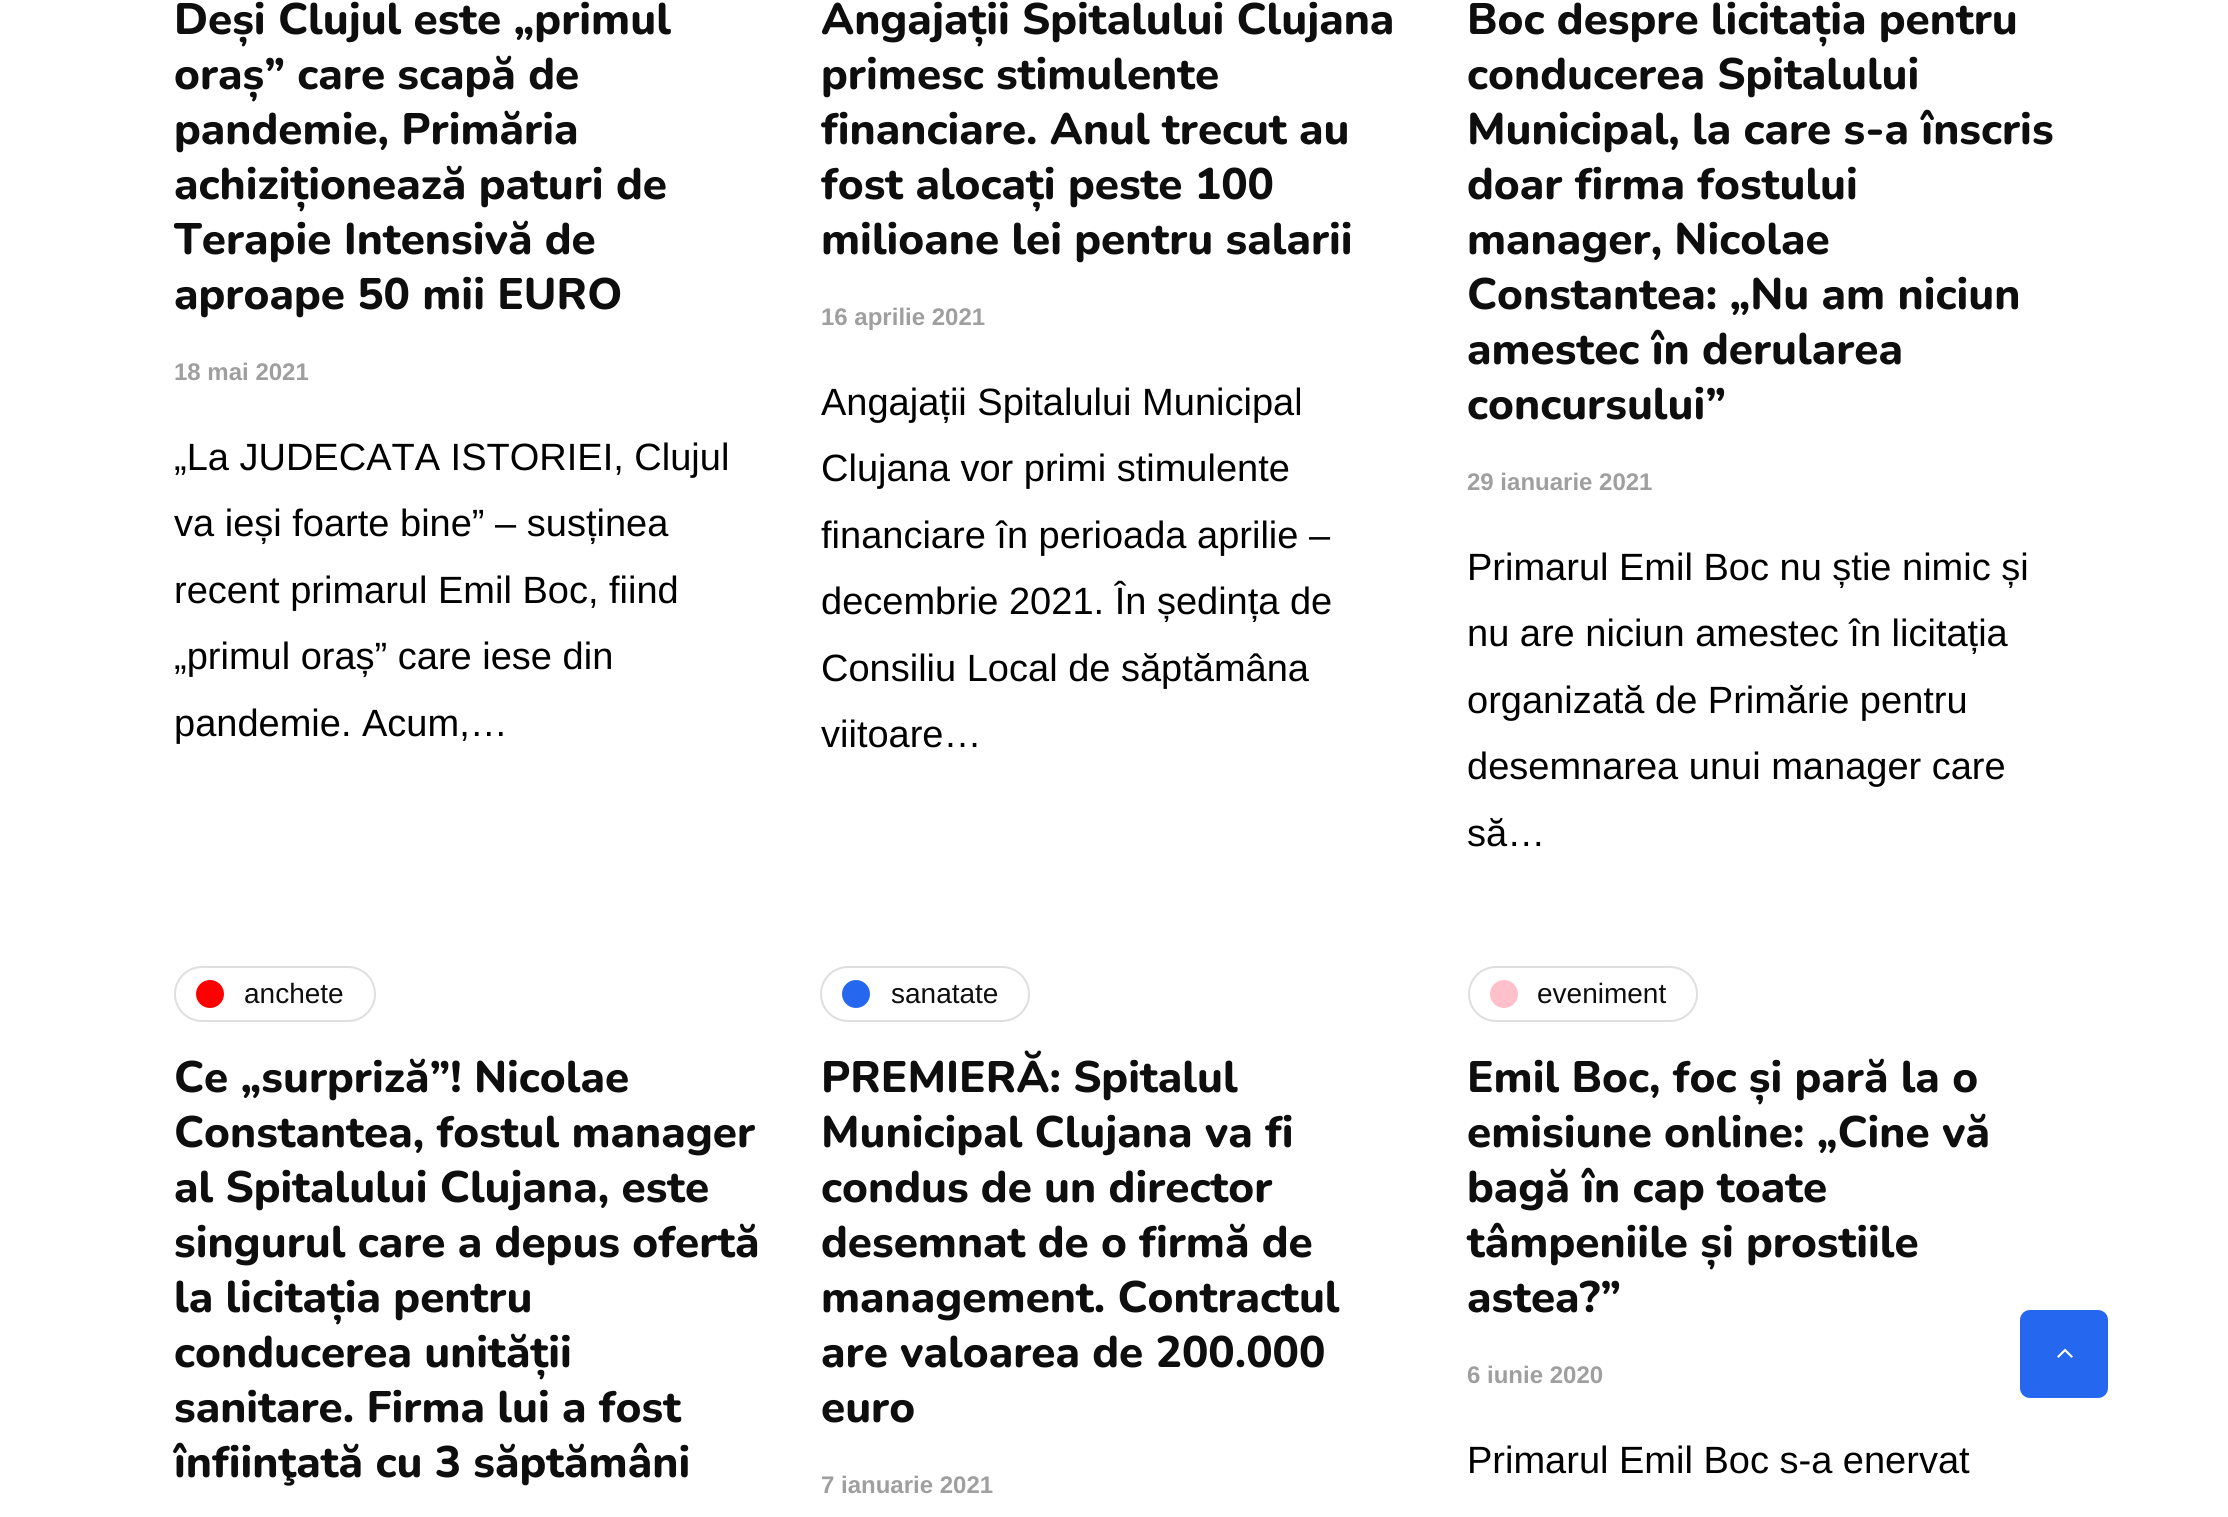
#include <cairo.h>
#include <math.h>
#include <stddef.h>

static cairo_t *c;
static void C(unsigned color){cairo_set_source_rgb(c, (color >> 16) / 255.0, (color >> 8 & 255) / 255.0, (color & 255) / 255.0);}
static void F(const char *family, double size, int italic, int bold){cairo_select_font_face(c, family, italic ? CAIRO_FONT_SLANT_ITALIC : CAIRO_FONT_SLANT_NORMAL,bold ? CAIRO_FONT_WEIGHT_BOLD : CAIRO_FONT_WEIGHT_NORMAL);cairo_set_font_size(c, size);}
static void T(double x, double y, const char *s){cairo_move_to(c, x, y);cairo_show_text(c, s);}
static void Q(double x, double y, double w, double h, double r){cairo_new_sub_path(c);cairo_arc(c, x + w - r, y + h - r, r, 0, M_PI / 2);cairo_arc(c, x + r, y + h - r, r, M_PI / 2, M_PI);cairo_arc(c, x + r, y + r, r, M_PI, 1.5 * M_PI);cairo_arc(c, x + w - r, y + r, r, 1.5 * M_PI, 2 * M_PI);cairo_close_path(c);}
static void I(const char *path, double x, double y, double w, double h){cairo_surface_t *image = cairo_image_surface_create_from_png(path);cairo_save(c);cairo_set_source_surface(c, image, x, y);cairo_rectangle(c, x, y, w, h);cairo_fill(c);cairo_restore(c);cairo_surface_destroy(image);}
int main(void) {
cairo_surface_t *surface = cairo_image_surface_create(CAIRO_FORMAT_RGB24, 2228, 1517);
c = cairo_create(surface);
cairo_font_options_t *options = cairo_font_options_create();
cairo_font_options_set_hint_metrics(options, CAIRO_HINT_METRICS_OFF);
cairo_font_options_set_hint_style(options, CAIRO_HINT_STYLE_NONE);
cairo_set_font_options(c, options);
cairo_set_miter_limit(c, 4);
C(0xffffff);
cairo_paint(c);
F("Nunito ExtraBold",44,0,0);
C(0x0f0e0e);
T(174,34,"Deși Clujul este „primul");
T(174,89,"oraș” care scapă de");
T(174,144,"pandemie, Primăria");
T(174,199,"achiziționează paturi de");
T(174,254,"Terapie Intensivă de");
T(174,309,"aproape 50 mii EURO");
F("Liberation Sans",24,0,1);
C(0x9f9f9f);
T(174,380,"18 mai 2021");
F("Liberation Sans",38,0,0);
C(0x000000);
T(174,470,"„La JUDECATA ISTORIEI, Clujul");
T(174,536,"va ieși foarte bine” – susținea");
T(174,603,"recent primarul Emil Boc, fiind");
T(174,669,"„primul oraș” care iese din");
T(174,736,"pandemie. Acum,…");
F("Nunito ExtraBold",44,0,0);
C(0x0f0e0e);
T(821,34,"Angajații Spitalului Clujana");
T(821,89,"primesc stimulente");
T(821,144,"financiare. Anul trecut au");
T(821,199,"fost alocați peste 100");
T(821,254,"milioane lei pentru salarii");
F("Liberation Sans",24,0,1);
C(0x9f9f9f);
T(821,325,"16 aprilie 2021");
F("Liberation Sans",38,0,0);
C(0x000000);
T(821,415,"Angajații Spitalului Municipal");
T(821,481,"Clujana vor primi stimulente");
T(821,548,"financiare în perioada aprilie –");
T(821,614,"decembrie 2021. În ședința de");
T(821,681,"Consiliu Local de săptămâna");
T(821,747,"viitoare…");
F("Nunito ExtraBold",44,0,0);
C(0x0f0e0e);
T(1467,34,"Boc despre licitația pentru");
T(1467,89,"conducerea Spitalului");
T(1467,144,"Municipal, la care s-a înscris");
T(1467,199,"doar firma fostului");
T(1467,254,"manager, Nicolae");
T(1467,309,"Constantea: „Nu am niciun");
T(1467,364,"amestec în derularea");
T(1467,419,"concursului”");
F("Liberation Sans",24,0,1);
C(0x9f9f9f);
T(1467,490,"29 ianuarie 2021");
F("Liberation Sans",38,0,0);
C(0x000000);
T(1467,580,"Primarul Emil Boc nu știe nimic și");
T(1467,646,"nu are niciun amestec în licitația");
T(1467,713,"organizată de Primărie pentru");
T(1467,779,"desemnarea unui manager care");
T(1467,846,"să…");
Q(175,967,200,54,27);
C(0xe0dede);
cairo_stroke(c);
C(0xff0000);
cairo_arc(c,210,994,14,0,2 * M_PI);
cairo_fill(c);
F("Liberation Sans",28,0,0);
C(0x0f0e0e);
T(244,1003,"anchete");
F("Nunito ExtraBold",44,0,0);
T(174,1092,"Ce „surpriză”! Nicolae");
T(174,1147,"Constantea, fostul manager");
T(174,1202,"al Spitalului Clujana, este");
T(174,1257,"singurul care a depus ofertă");
T(174,1312,"la licitația pentru");
T(174,1367,"conducerea unității");
T(174,1422,"sanitare. Firma lui a fost");
T(174,1477,"înfiinţată cu 3 săptămâni");
Q(821,967,208,54,27);
C(0xe0dede);
cairo_stroke(c);
C(0x2568ef);
cairo_arc(c,856,994,14,0,2 * M_PI);
cairo_fill(c);
F("Liberation Sans",28,0,0);
C(0x0f0e0e);
T(891,1003,"sanatate");
F("Nunito ExtraBold",44,0,0);
T(821,1092,"PREMIERĂ: Spitalul");
T(821,1147,"Municipal Clujana va fi");
T(821,1202,"condus de un director");
T(821,1257,"desemnat de o firmă de");
T(821,1312,"management. Contractul");
T(821,1367,"are valoarea de 200.000");
T(821,1422,"euro");
F("Liberation Sans",24,0,1);
C(0x9f9f9f);
T(821,1493,"7 ianuarie 2021");
Q(1469,967,228,54,27);
C(0xe0dede);
cairo_stroke(c);
C(0xffc0cb);
cairo_arc(c,1504,994,14,0,2 * M_PI);
cairo_fill(c);
F("Liberation Sans",28,0,0);
C(0x0f0e0e);
T(1537,1003,"eveniment");
F("Nunito ExtraBold",44,0,0);
T(1467,1092,"Emil Boc, foc și pară la o");
T(1467,1147,"emisiune online: „Cine vă");
T(1467,1202,"bagă în cap toate");
T(1467,1257,"tâmpeniile și prostiile");
T(1467,1312,"astea?”");
F("Liberation Sans",24,0,1);
C(0x9f9f9f);
T(1467,1383,"6 iunie 2020");
F("Liberation Sans",38,0,0);
C(0x000000);
T(1467,1473,"Primarul Emil Boc s-a enervat");
C(0x2568ef);
Q(2021,1311,86,86,9);
cairo_fill_preserve(c);
cairo_stroke(c);
I("1.png",2057,1348,16,10);
cairo_surface_write_to_png(surface, "o.png");
cairo_font_options_destroy(options);
cairo_destroy(c);
cairo_surface_destroy(surface);
return 0;
}
